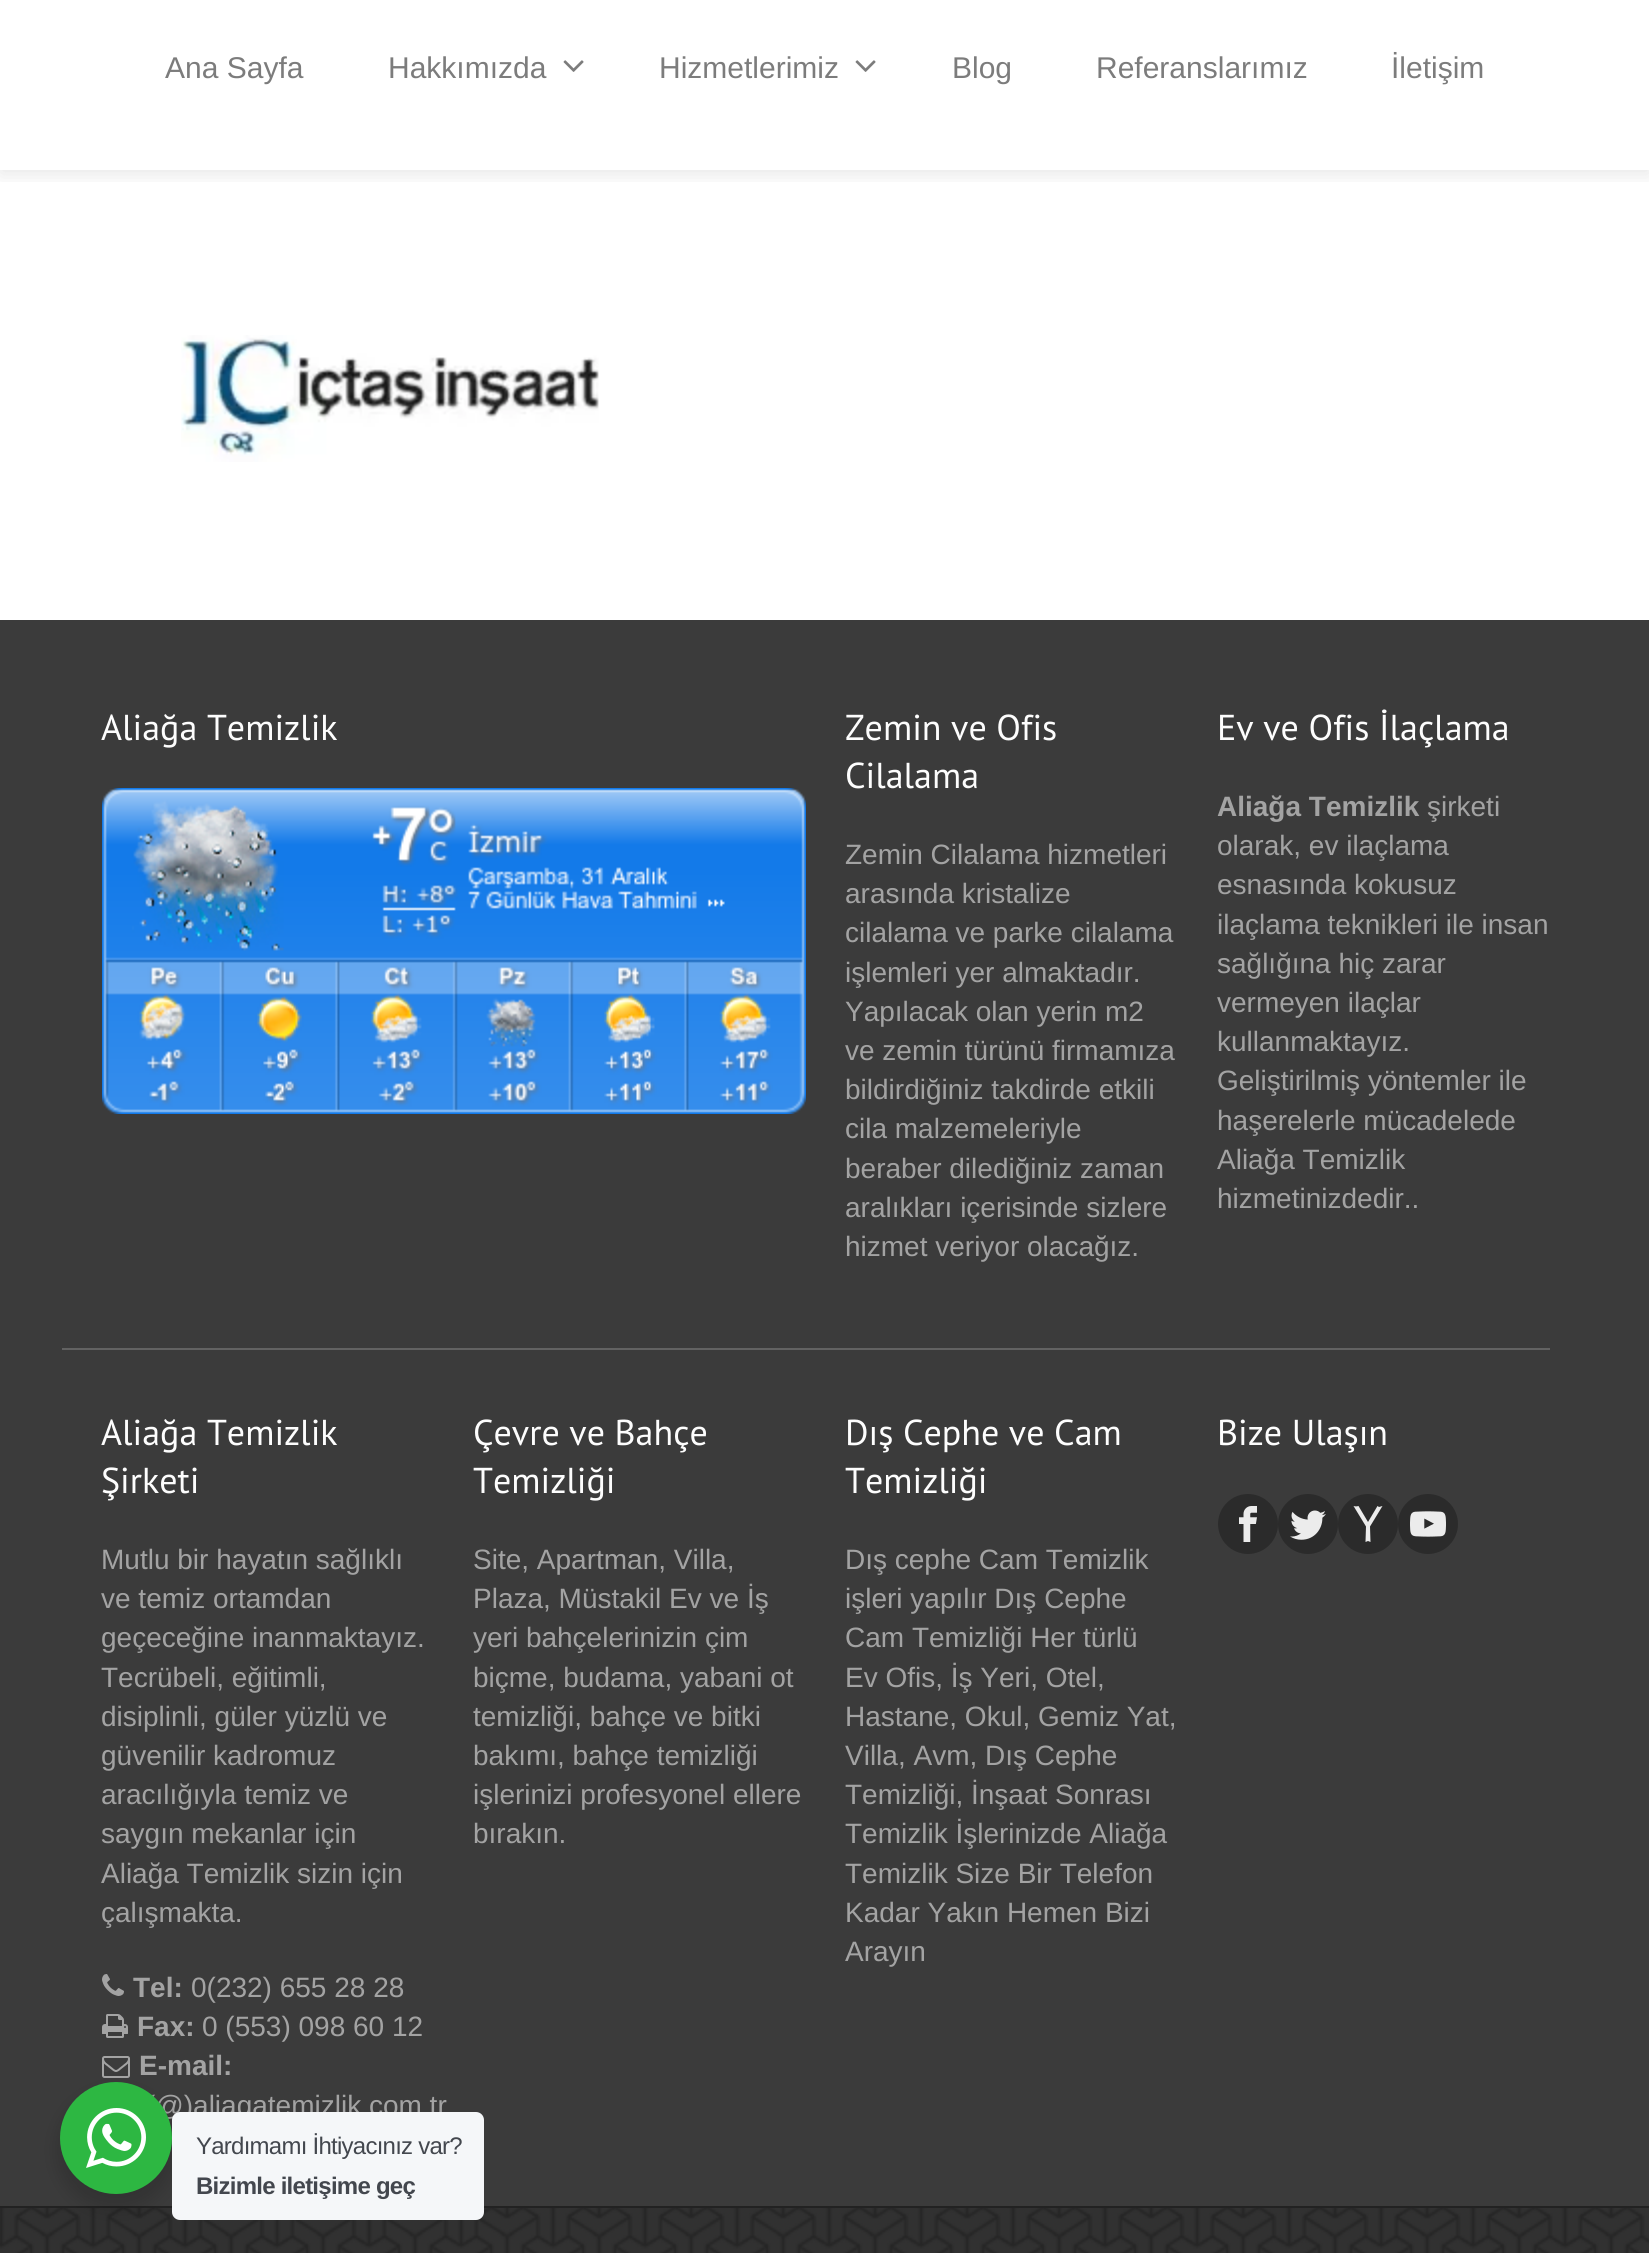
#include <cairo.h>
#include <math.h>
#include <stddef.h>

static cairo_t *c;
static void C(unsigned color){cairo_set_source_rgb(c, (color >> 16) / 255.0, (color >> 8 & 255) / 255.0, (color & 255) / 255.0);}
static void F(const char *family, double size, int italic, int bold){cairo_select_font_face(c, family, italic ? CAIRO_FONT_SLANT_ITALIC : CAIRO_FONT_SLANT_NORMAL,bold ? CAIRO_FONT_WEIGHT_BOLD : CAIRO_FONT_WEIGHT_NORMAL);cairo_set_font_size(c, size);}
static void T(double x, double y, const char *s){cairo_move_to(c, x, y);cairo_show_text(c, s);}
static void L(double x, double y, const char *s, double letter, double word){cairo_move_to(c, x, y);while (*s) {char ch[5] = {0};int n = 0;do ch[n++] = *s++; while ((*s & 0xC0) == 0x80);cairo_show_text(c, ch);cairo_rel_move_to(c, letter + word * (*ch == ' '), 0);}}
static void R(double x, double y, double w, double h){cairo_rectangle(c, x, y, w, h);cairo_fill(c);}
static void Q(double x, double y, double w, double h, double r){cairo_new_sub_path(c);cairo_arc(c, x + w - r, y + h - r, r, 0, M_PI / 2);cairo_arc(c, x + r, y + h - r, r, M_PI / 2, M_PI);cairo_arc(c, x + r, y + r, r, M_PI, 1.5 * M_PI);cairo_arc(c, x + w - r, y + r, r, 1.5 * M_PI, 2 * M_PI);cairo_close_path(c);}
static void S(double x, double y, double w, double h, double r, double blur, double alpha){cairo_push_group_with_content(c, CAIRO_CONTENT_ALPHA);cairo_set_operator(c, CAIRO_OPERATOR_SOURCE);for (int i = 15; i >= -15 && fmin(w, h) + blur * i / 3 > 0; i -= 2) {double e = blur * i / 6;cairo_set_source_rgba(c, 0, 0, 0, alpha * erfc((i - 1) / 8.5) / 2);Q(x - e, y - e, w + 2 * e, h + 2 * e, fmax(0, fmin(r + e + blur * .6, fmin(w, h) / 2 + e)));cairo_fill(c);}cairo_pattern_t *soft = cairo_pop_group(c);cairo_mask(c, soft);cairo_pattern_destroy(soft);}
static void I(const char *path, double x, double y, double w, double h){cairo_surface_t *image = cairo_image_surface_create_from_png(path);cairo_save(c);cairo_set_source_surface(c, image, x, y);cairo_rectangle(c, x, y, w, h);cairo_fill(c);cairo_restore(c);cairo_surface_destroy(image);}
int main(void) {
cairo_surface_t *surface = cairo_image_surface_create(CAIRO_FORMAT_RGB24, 1649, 2253);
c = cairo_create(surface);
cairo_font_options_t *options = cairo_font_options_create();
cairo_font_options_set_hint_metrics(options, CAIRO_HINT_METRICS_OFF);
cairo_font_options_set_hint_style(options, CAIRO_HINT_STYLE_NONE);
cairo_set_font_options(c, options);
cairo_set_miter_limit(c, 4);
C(0xffffff);
cairo_paint(c);
cairo_save(c);
cairo_rectangle(c,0,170,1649,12);
cairo_clip(c);
C(0x000000);
S(0,-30,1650,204,0,10,.1);
cairo_restore(c);
F("Liberation Sans",30,0,0);
C(0x7c7c7c);
T(165,78,"Ana Sayfa");
T(388,78,"Hakkımızda");
I("1.png",563,60,21,12);
T(659,78,"Hizmetlerimiz");
I("1.png",855,60,21,12);
T(952,78,"Blog");
T(1096,78,"Referanslarımız");
T(1391,78,"İletişim");
I("2.png",181,335,418,127);
C(0x3b3b3b);
R(0,620,1649,1586);
F("PT Sans",36,0,0);
C(0xfdfdfd);
T(101,740,"Aliağa Temizlik");
I("3.png",102,788,704,326);
T(845,740,"Zemin ve Ofis");
T(845,788,"Cilalama");
F("Liberation Sans",28,0,0);
C(0xa3a3a3);
T(845,864,"Zemin Cilalama hizmetleri");
T(845,903,"arasında kristalize");
T(845,942,"cilalama ve parke cilalama");
T(845,982,"işlemleri yer almaktadır.");
T(845,1021,"Yapılacak olan yerin m2");
T(845,1060,"ve zemin türünü firmamıza");
T(845,1099,"bildirdiğiniz takdirde etkili");
T(845,1138,"cila malzemeleriyle");
T(845,1178,"beraber dilediğiniz zaman");
T(845,1217,"aralıkları içerisinde sizlere");
T(845,1256,"hizmet veriyor olacağız.");
F("PT Sans",36,0,0);
C(0xfdfdfd);
T(1217,740,"Ev ve Ofis İlaçlama");
F("Liberation Sans",28,0,1);
C(0xa3a3a3);
T(1217,816,"Aliağa Temizlik");
F("Liberation Sans",28,0,0);
T(1427,816,"şirketi");
T(1217,855,"olarak, ev ilaçlama");
T(1217,894,"esnasında kokusuz");
T(1217,934,"ilaçlama teknikleri ile insan");
T(1217,973,"sağlığına hiç zarar");
T(1217,1012,"vermeyen ilaçlar");
T(1217,1051,"kullanmaktayız.");
T(1217,1090,"Geliştirilmiş yöntemler ile");
T(1217,1130,"haşerelerle mücadelede");
T(1217,1169,"Aliağa Temizlik");
T(1217,1208,"hizmetinizdedir..");
C(0x626262);
R(62,1348,1488,2);
F("PT Sans",36,0,0);
C(0xfdfdfd);
T(101,1445,"Aliağa Temizlik");
T(101,1493,"Şirketi");
F("Liberation Sans",28,0,0);
C(0xa3a3a3);
T(101,1569,"Mutlu bir hayatın sağlıklı");
T(101,1608,"ve temiz ortamdan");
T(101,1647,"geçeceğine inanmaktayız.");
T(101,1687,"Tecrübeli, eğitimli,");
T(101,1726,"disiplinli, güler yüzlü ve");
T(101,1765,"güvenilir kadromuz");
T(101,1804,"aracılığıyla temiz ve");
T(101,1843,"saygın mekanlar için");
T(101,1883,"Aliağa Temizlik sizin için");
T(101,1922,"çalışmakta.");
I("4.png",102,1974,22,22);
F("Liberation Sans",28,0,1);
T(133,1997,"Tel:");
F("Liberation Sans",28,0,0);
T(191,1997,"0(232) 655 28 28");
I("5.png",102,2014,26,24);
F("Liberation Sans",28,0,1);
T(137,2036,"Fax:");
F("Liberation Sans",28,0,0);
T(202,2036,"0 (553) 098 60 12");
I("6.png",102,2056,28,22);
F("Liberation Sans",28,0,1);
T(139,2075,"E-mail:");
F("Liberation Sans",28,0,0);
T(146,2115,"(@)aliagatemizlik.com.tr");
F("PT Sans",36,0,0);
C(0xfdfdfd);
T(473,1445,"Çevre ve Bahçe");
T(473,1493,"Temizliği");
F("Liberation Sans",28,0,0);
C(0xa3a3a3);
T(473,1569,"Site, Apartman, Villa,");
T(473,1608,"Plaza, Müstakil Ev ve İş");
T(473,1647,"yeri bahçelerinizin çim");
T(473,1687,"biçme, budama, yabani ot");
T(473,1726,"temizliği, bahçe ve bitki");
T(473,1765,"bakımı, bahçe temizliği");
T(473,1804,"işlerinizi profesyonel ellere");
T(473,1843,"bırakın.");
F("PT Sans",36,0,0);
C(0xfdfdfd);
T(845,1445,"Dış Cephe ve Cam");
T(845,1493,"Temizliği");
F("Liberation Sans",28,0,0);
C(0xa3a3a3);
T(845,1569,"Dış cephe Cam Temizlik");
T(845,1608,"işleri yapılır Dış Cephe");
T(845,1647,"Cam Temizliği Her türlü");
T(845,1687,"Ev Ofis, İş Yeri, Otel,");
T(845,1726,"Hastane, Okul, Gemiz Yat,");
T(845,1765,"Villa, Avm, Dış Cephe");
T(845,1804,"Temizliği, İnşaat Sonrası");
T(845,1843,"Temizlik İşlerinizde Aliağa");
T(845,1883,"Temizlik Size Bir Telefon");
T(845,1922,"Kadar Yakın Hemen Bizi");
T(845,1961,"Arayın");
F("PT Sans",36,0,0);
C(0xfdfdfd);
T(1217,1445,"Bize Ulaşın");
C(0x2b2b2b);
cairo_new_path(c);
cairo_arc(c,1248,1524,30,0,2 * M_PI);
cairo_fill(c);
I("7.png",1239,1506,18,36);
cairo_arc(c,1308,1524,30,0,2 * M_PI);
cairo_fill(c);
I("8.png",1290,1510,36,30);
cairo_arc(c,1368,1524,30,0,2 * M_PI);
cairo_fill(c);
C(0xececec);
cairo_new_path(c);
cairo_move_to(c,1370,1526.5);
cairo_line_to(c,1382.5,1506);
cairo_line_to(c,1379,1507);
cairo_line_to(c,1377.5,1506);
cairo_line_to(c,1368,1522);
cairo_line_to(c,1358.5,1506);
cairo_curve_to(c,1356.5,1506.5,1355.5,1506.5,1353.5,1506);
cairo_line_to(c,1366,1526.5);
cairo_line_to(c,1365.5,1542);
cairo_line_to(c,1368,1541);
cairo_line_to(c,1370.5,1542);
cairo_close_path(c);
cairo_fill(c);
C(0x2b2b2b);
cairo_arc(c,1428,1524,30,0,2 * M_PI);
cairo_fill(c);
I("9.png",1410,1511,36,26);
I("10.png",0,2208,1649,45);
C(0x222222);
R(0,2206,1649,2);
C(0x000000);
S(56,2090,120,120,60,8,.14);
C(0x2db742);
cairo_arc(c,116,2138,56,0,2 * M_PI);
cairo_fill(c);
I("11.png",86,2108,60,60);
C(0xf5f7f9);
Q(172,2112,312,108,8);
cairo_fill(c);
F("Liberation Sans",24,0,0);
C(0x43474e);
L(196,2154,"Yardımamı İhtiyacınız var?",-.75,0);
F("Liberation Sans",24,0,1);
L(196,2194,"Bizimle iletişime geç",-.75,0);
cairo_surface_write_to_png(surface, "o.png");
cairo_font_options_destroy(options);
cairo_destroy(c);
cairo_surface_destroy(surface);
return 0;
}
